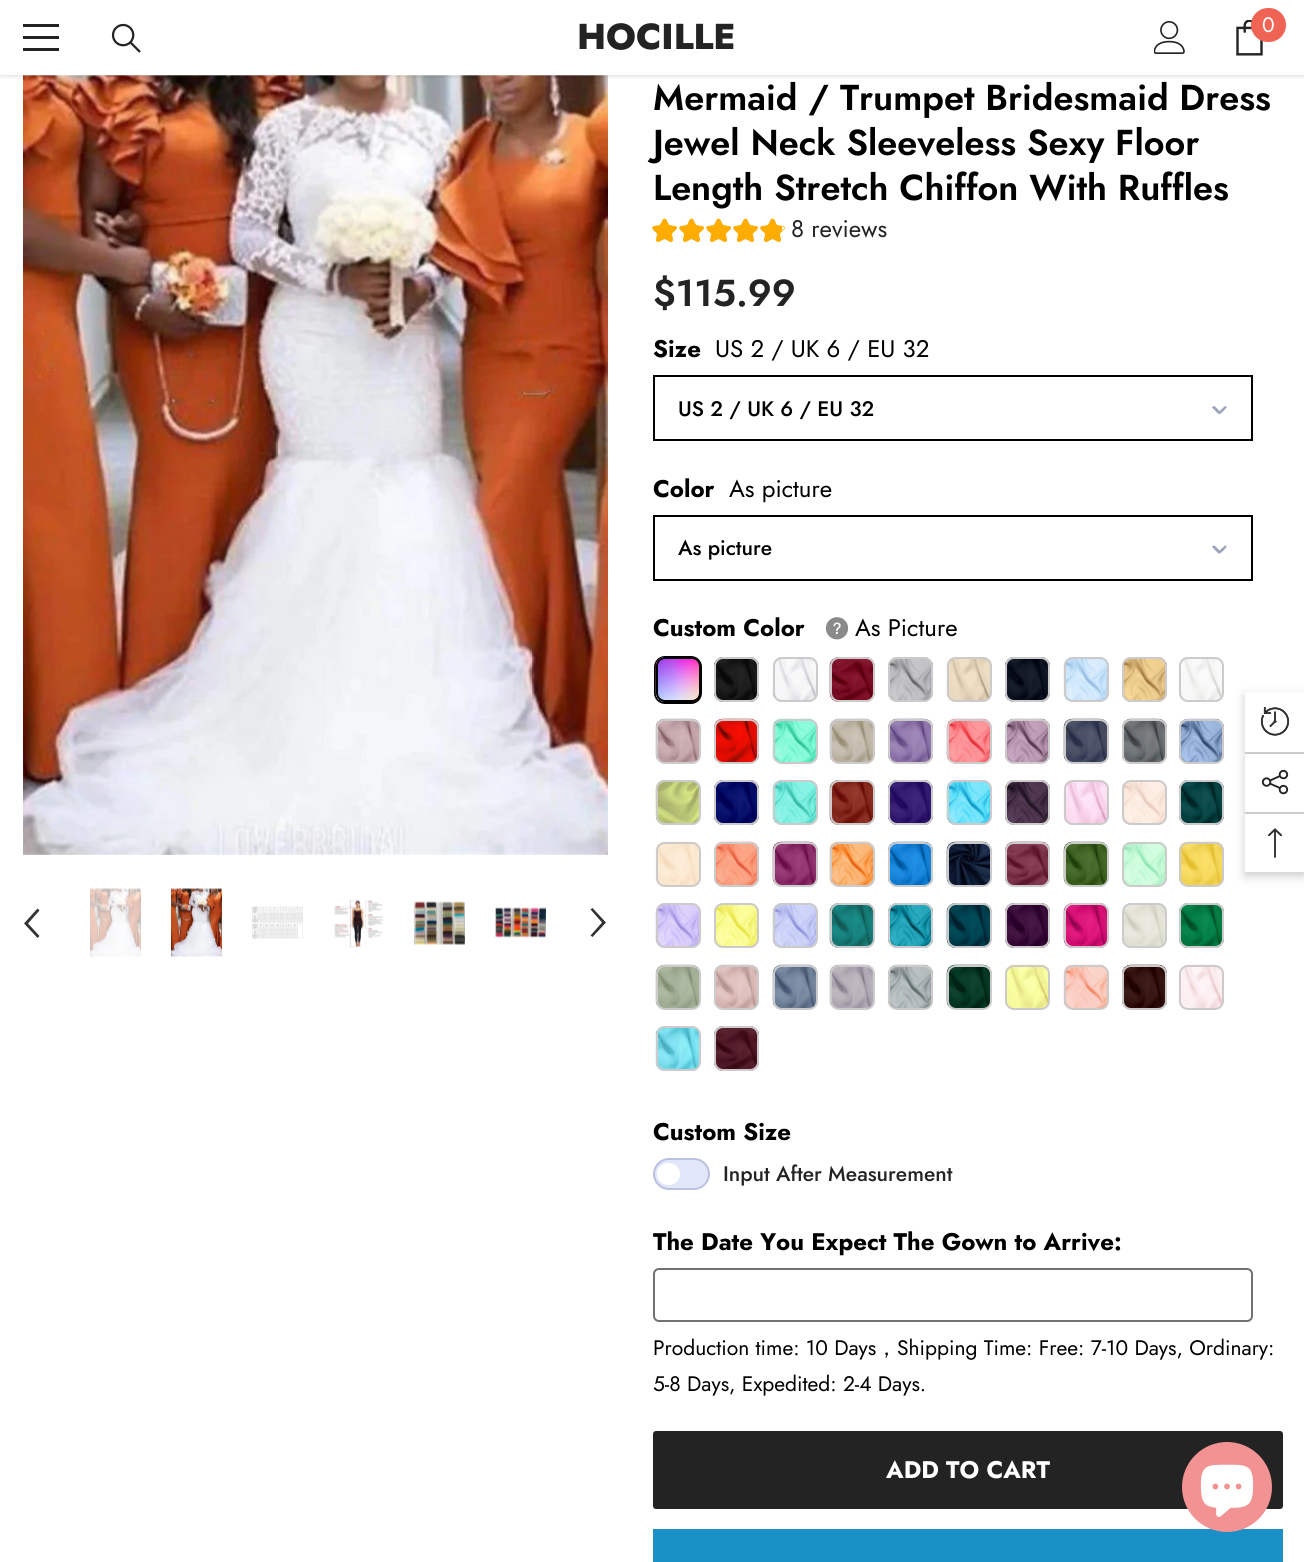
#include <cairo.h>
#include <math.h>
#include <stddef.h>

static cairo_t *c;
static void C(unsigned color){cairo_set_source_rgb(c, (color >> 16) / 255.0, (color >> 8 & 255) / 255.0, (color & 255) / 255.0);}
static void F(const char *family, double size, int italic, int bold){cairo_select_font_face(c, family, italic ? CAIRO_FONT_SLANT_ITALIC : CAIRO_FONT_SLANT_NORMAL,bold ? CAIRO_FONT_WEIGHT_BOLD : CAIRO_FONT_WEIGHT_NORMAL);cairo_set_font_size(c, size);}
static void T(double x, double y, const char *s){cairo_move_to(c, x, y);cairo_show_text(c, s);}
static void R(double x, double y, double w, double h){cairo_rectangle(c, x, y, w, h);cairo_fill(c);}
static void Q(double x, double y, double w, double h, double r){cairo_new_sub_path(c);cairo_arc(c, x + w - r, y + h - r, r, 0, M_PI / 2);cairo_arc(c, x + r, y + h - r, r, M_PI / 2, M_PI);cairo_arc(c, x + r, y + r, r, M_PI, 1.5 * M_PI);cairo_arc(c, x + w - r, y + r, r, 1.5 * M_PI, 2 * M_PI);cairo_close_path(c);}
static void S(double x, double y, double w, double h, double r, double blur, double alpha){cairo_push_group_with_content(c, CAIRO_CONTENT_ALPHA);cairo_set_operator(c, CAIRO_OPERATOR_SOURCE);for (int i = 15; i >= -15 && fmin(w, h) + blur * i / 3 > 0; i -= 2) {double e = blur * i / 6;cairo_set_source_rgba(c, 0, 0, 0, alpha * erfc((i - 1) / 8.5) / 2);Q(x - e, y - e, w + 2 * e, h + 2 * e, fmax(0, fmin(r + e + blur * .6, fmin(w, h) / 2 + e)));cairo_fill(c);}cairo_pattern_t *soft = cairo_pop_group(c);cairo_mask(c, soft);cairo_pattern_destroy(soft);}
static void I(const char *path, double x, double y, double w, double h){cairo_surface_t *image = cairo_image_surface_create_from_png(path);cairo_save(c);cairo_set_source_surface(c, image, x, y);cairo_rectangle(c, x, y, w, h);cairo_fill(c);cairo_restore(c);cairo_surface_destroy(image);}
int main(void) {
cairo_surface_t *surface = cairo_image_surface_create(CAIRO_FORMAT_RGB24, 1304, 1562);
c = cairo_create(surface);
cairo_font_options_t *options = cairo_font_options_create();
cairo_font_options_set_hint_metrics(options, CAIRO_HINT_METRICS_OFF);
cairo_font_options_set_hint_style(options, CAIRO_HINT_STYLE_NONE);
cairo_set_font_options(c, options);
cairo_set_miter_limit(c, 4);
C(0xffffff);
cairo_paint(c);
I("4.png",23,75,585,780);
cairo_save(c);
cairo_rectangle(c,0,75,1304,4);
cairo_clip(c);
C(0x000000);
S(0,2,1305,75,0,2,.1);
cairo_restore(c);
C(0x232323);
R(23,36,36,3);
R(23,24,36,3);
R(23,48,36,3);
I("1.png",111,23,30,30);
F("Jost ExtraBold",36,0,0);
T(577,49,"HOCILLE");
I("2.png",1154,21,31,33);
I("3.png",1236,20,27,36);
C(0xef6454);
Q(1251,8,35,34,17);
cairo_fill(c);
F("Jost",21,0,0);
C(0xffffff);
T(1262,32,"0");
C(0x323232);
cairo_new_path(c);
cairo_move_to(c,37.5,938);
cairo_line_to(c,39.5,936);
cairo_line_to(c,28,923.5);
cairo_line_to(c,39.5,910.5);
cairo_line_to(c,37.5,908.5);
cairo_line_to(c,24,923.5);
cairo_line_to(c,25,924.5);
cairo_close_path(c);
cairo_fill(c);
I("5.png",90,888,51,69);
I("6.png",171,888,51,69);
I("7.png",252,906,51,33);
I("8.png",334,899,49,49);
I("9.png",414,901,51,44);
I("10.png",495,907,51,31);
cairo_new_path(c);
cairo_move_to(c,592.5,908);
cairo_line_to(c,590.5,909.5);
cairo_line_to(c,602,922.5);
cairo_line_to(c,590.5,935.5);
cairo_line_to(c,592.5,937);
cairo_line_to(c,606,922.5);
cairo_line_to(c,605,921.5);
cairo_close_path(c);
cairo_fill(c);
F("Jost SemiBold",36,0,0);
C(0x000000);
T(653,110,"Mermaid / Trumpet Bridesmaid Dress");
T(653,155,"Jewel Neck Sleeveless Sexy Floor");
T(653,200,"Length Stretch Chiffon With Ruffles");
I("11.png",652,218,25,24);
I("12.png",653,219,24,23);
I("11.png",679,218,25,24);
I("12.png",680,219,24,23);
I("11.png",706,218,25,24);
I("12.png",707,219,24,23);
I("11.png",733,218,25,24);
I("12.png",734,219,24,23);
I("11.png",760,218,25,24);
I("13.png",761,219,21,23);
F("Jost",24,0,0);
C(0x232323);
T(791,237,"8 reviews");
F("Jost SemiBold",37.5,0,0);
T(653,306,"$115.99");
F("Jost",24,0,1);
C(0x000000);
T(653,357,"Size");
F("Jost",24,0,0);
T(715,357,"US 2 / UK 6 / EU 32");
cairo_rectangle(c,654,376,598,64);
cairo_stroke(c);
F("Jost Medium",21,0,0);
T(678,416,"US 2 / UK 6 / EU 32");
C(0x99a3ba);
cairo_new_path(c);
cairo_move_to(c,1215,406.5);
cairo_line_to(c,1220.5,412);
cairo_curve_to(c,1221,412.5,1221,413,1220,413.5);
cairo_curve_to(c,1219.5,414,1218.5,414,1218,413.5);
cairo_line_to(c,1212.5,408);
cairo_curve_to(c,1212,407.5,1212,406.5,1213,406.5);
cairo_curve_to(c,1213.5,406,1214.5,406,1215,406.5);
cairo_close_path(c);
cairo_fill(c);
cairo_new_path(c);
cairo_move_to(c,1218.5,412);
cairo_line_to(c,1224.5,406.5);
cairo_curve_to(c,1225,405.5,1227,406,1226.5,407.5);
cairo_curve_to(c,1226.5,407.5,1219,417,1218.5,413);
cairo_close_path(c);
cairo_fill(c);
F("Jost",24,0,1);
C(0x000000);
T(653,497,"Color");
F("Jost",24,0,0);
T(729,497,"As picture");
cairo_rectangle(c,654,516,598,64);
cairo_stroke(c);
F("Jost Medium",21,0,0);
T(678,555,"As picture");
C(0x99a3ba);
cairo_new_path(c);
cairo_move_to(c,1215,546);
cairo_line_to(c,1220.5,551.5);
cairo_curve_to(c,1221,552,1221,552.5,1220,553);
cairo_curve_to(c,1219.5,553.5,1218.5,553.5,1218,553);
cairo_line_to(c,1212.5,547.5);
cairo_curve_to(c,1212,547,1212,546,1213,546);
cairo_curve_to(c,1213.5,545.5,1214.5,545.5,1215,546);
cairo_close_path(c);
cairo_fill(c);
cairo_new_path(c);
cairo_move_to(c,1218.5,551.5);
cairo_line_to(c,1224.5,546);
cairo_curve_to(c,1225,545,1227,545.5,1226.5,547);
cairo_curve_to(c,1226.5,547,1219,556.5,1218.5,552.5);
cairo_close_path(c);
cairo_fill(c);
F("Jost",24,0,1);
C(0x000000);
T(653,636,"Custom Color");
I("14.png",825,617,24,23);
F("Jost",24,0,0);
T(855,636,"As Picture");
Q(655,657,46,46,10);
cairo_stroke(c);
I("15.png",655,657,46,45);
Q(657,658,43,43,8);
cairo_stroke(c);
I("16.png",714,657,45,45);
Q(715,658,43,43,8);
C(0xcccaca);
cairo_stroke(c);
I("17.png",772,657,45,45);
Q(774,658,43,43,8);
cairo_stroke(c);
I("18.png",829,657,46,45);
Q(831,658,43,43,8);
cairo_stroke(c);
I("19.png",888,657,45,45);
Q(889,658,43,43,8);
cairo_stroke(c);
I("20.png",946,657,46,45);
Q(948,658,43,43,8);
cairo_stroke(c);
I("21.png",1005,657,45,45);
Q(1006,658,43,43,8);
cairo_stroke(c);
I("22.png",1063,657,46,45);
Q(1065,658,43,43,8);
cairo_stroke(c);
I("23.png",1122,657,45,45);
Q(1123,658,43,43,8);
cairo_stroke(c);
I("24.png",1179,657,45,45);
Q(1180,658,43,43,8);
cairo_stroke(c);
I("25.png",655,718,46,46);
Q(657,720,43,43,8);
cairo_stroke(c);
I("26.png",714,718,45,46);
Q(715,720,43,43,8);
cairo_stroke(c);
I("27.png",772,718,46,46);
Q(774,720,43,43,8);
cairo_stroke(c);
I("28.png",829,718,46,46);
Q(831,720,43,43,8);
cairo_stroke(c);
I("29.png",888,718,45,46);
Q(889,720,43,43,8);
cairo_stroke(c);
I("30.png",946,718,46,46);
Q(948,720,43,43,8);
cairo_stroke(c);
I("31.png",1005,718,45,46);
Q(1006,720,43,43,8);
cairo_stroke(c);
I("32.png",1063,718,46,46);
Q(1065,720,43,43,8);
cairo_stroke(c);
I("33.png",1122,718,45,46);
Q(1123,720,43,43,8);
cairo_stroke(c);
I("34.png",1179,718,45,46);
Q(1180,720,43,43,8);
cairo_stroke(c);
I("35.png",655,780,46,45);
Q(657,781,43,43,8);
cairo_stroke(c);
I("36.png",714,780,45,45);
Q(715,781,43,43,8);
cairo_stroke(c);
I("37.png",772,780,46,45);
Q(774,781,43,43,8);
cairo_stroke(c);
I("38.png",829,780,46,45);
Q(831,781,43,43,8);
cairo_stroke(c);
I("39.png",888,780,45,45);
Q(889,781,43,43,8);
cairo_stroke(c);
I("40.png",946,780,46,45);
Q(948,781,43,43,8);
cairo_stroke(c);
I("41.png",1005,780,45,45);
Q(1006,781,43,43,8);
cairo_stroke(c);
I("42.png",1063,780,46,45);
Q(1065,781,43,43,8);
cairo_stroke(c);
I("43.png",1122,780,45,45);
Q(1123,781,43,43,8);
cairo_stroke(c);
I("44.png",1179,780,45,45);
Q(1180,781,43,43,8);
cairo_stroke(c);
I("45.png",655,841,46,46);
Q(657,843,43,43,8);
cairo_stroke(c);
I("46.png",714,841,45,46);
Q(715,843,43,43,8);
cairo_stroke(c);
I("47.png",772,841,46,46);
Q(774,843,43,43,8);
cairo_stroke(c);
I("48.png",829,841,46,46);
Q(831,843,43,43,8);
cairo_stroke(c);
I("49.png",888,841,45,46);
Q(889,843,43,43,8);
cairo_stroke(c);
I("50.png",946,841,46,46);
Q(948,843,43,43,8);
cairo_stroke(c);
I("51.png",1005,841,45,46);
Q(1006,843,43,43,8);
cairo_stroke(c);
I("52.png",1063,841,46,46);
Q(1065,843,43,43,8);
cairo_stroke(c);
I("53.png",1122,841,45,46);
Q(1123,843,43,43,8);
cairo_stroke(c);
I("54.png",1179,841,45,46);
Q(1180,843,43,43,8);
cairo_stroke(c);
I("55.png",655,903,46,45);
Q(657,904,43,43,8);
cairo_stroke(c);
I("56.png",714,903,45,45);
Q(715,904,43,43,8);
cairo_stroke(c);
I("57.png",772,903,46,45);
Q(774,904,43,43,8);
cairo_stroke(c);
I("58.png",829,903,46,45);
Q(831,904,43,43,8);
cairo_stroke(c);
I("59.png",888,903,45,45);
Q(889,904,43,43,8);
cairo_stroke(c);
I("60.png",946,903,46,45);
Q(948,904,43,43,8);
cairo_stroke(c);
I("61.png",1005,903,45,45);
Q(1006,904,43,43,8);
cairo_stroke(c);
I("62.png",1063,903,46,45);
Q(1065,904,43,43,8);
cairo_stroke(c);
I("63.png",1122,903,45,45);
Q(1123,904,43,43,8);
cairo_stroke(c);
I("64.png",1179,903,45,45);
Q(1180,904,43,43,8);
cairo_stroke(c);
I("65.png",655,964,46,46);
Q(657,966,43,43,8);
cairo_stroke(c);
I("66.png",714,964,45,46);
Q(715,966,43,43,8);
cairo_stroke(c);
I("67.png",772,964,46,46);
Q(774,966,43,43,8);
cairo_stroke(c);
I("68.png",829,964,46,46);
Q(831,966,43,43,8);
cairo_stroke(c);
I("69.png",888,964,45,46);
Q(889,966,43,43,8);
cairo_stroke(c);
I("70.png",946,964,46,46);
Q(948,966,43,43,8);
cairo_stroke(c);
I("71.png",1005,964,45,46);
Q(1006,966,43,43,8);
cairo_stroke(c);
I("72.png",1063,964,46,46);
Q(1065,966,43,43,8);
cairo_stroke(c);
I("73.png",1122,964,45,46);
Q(1123,966,43,43,8);
cairo_stroke(c);
I("74.png",1179,964,45,46);
Q(1180,966,43,43,8);
cairo_stroke(c);
I("75.png",655,1026,46,45);
Q(657,1027,43,43,8);
cairo_stroke(c);
I("76.png",714,1026,45,45);
Q(715,1027,43,43,8);
cairo_stroke(c);
F("Jost",24,0,1);
C(0x000000);
T(653,1140,"Custom Size");
C(0xe1e6f9);
Q(654,1159,55,30,15);
cairo_fill_preserve(c);
C(0xbbc1e1);
cairo_stroke(c);
C(0xffffff);
Q(657,1163,23,22,11);
cairo_fill(c);
F("Jost Medium",21,0,0);
C(0x232323);
T(723,1181,"Input After Measurement");
F("Jost",24,0,1);
C(0x000000);
T(653,1250,"The Date You Expect The Gown to Arrive:");
Q(654,1269,598,52,5);
C(0x717171);
cairo_stroke(c);
F("Jost",21,0,0);
C(0x000000);
T(653,1355,"Production time: 10 Days");
F("WenQuanYi Zen Hei Medium",21,0,0);
T(876,1355,"，");
F("Jost",21,0,0);
T(897,1355,"Shipping Time: Free: 7-10 Days, Ordinary:");
T(653,1391,"5-8 Days, Expedited: 2-4 Days.");
C(0x232323);
Q(654,1432,628,76,2);
cairo_fill_preserve(c);
cairo_stroke(c);
F("Jost",24,0,1);
C(0xffffff);
T(886,1478,"ADD TO CART");
C(0x1990c6);
R(653,1529,630,33);
C(0x000000);
S(1245,696,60,180,0,5,.2);
C(0xffffff);
R(1245,692,59,180);
I("77.png",1260,707,30,29);
C(0xcccccc);
R(1245,752,59,2);
I("78.png",1261,769,28,26);
R(1245,812,59,2);
I("79.png",1268,828,14,30);
C(0xf39292);
cairo_arc(c,1227,1487,45,0,2 * M_PI);
cairo_fill(c);
I("80.png",1200,1464,54,53);
cairo_surface_write_to_png(surface, "o.png");
cairo_font_options_destroy(options);
cairo_destroy(c);
cairo_surface_destroy(surface);
return 0;
}
